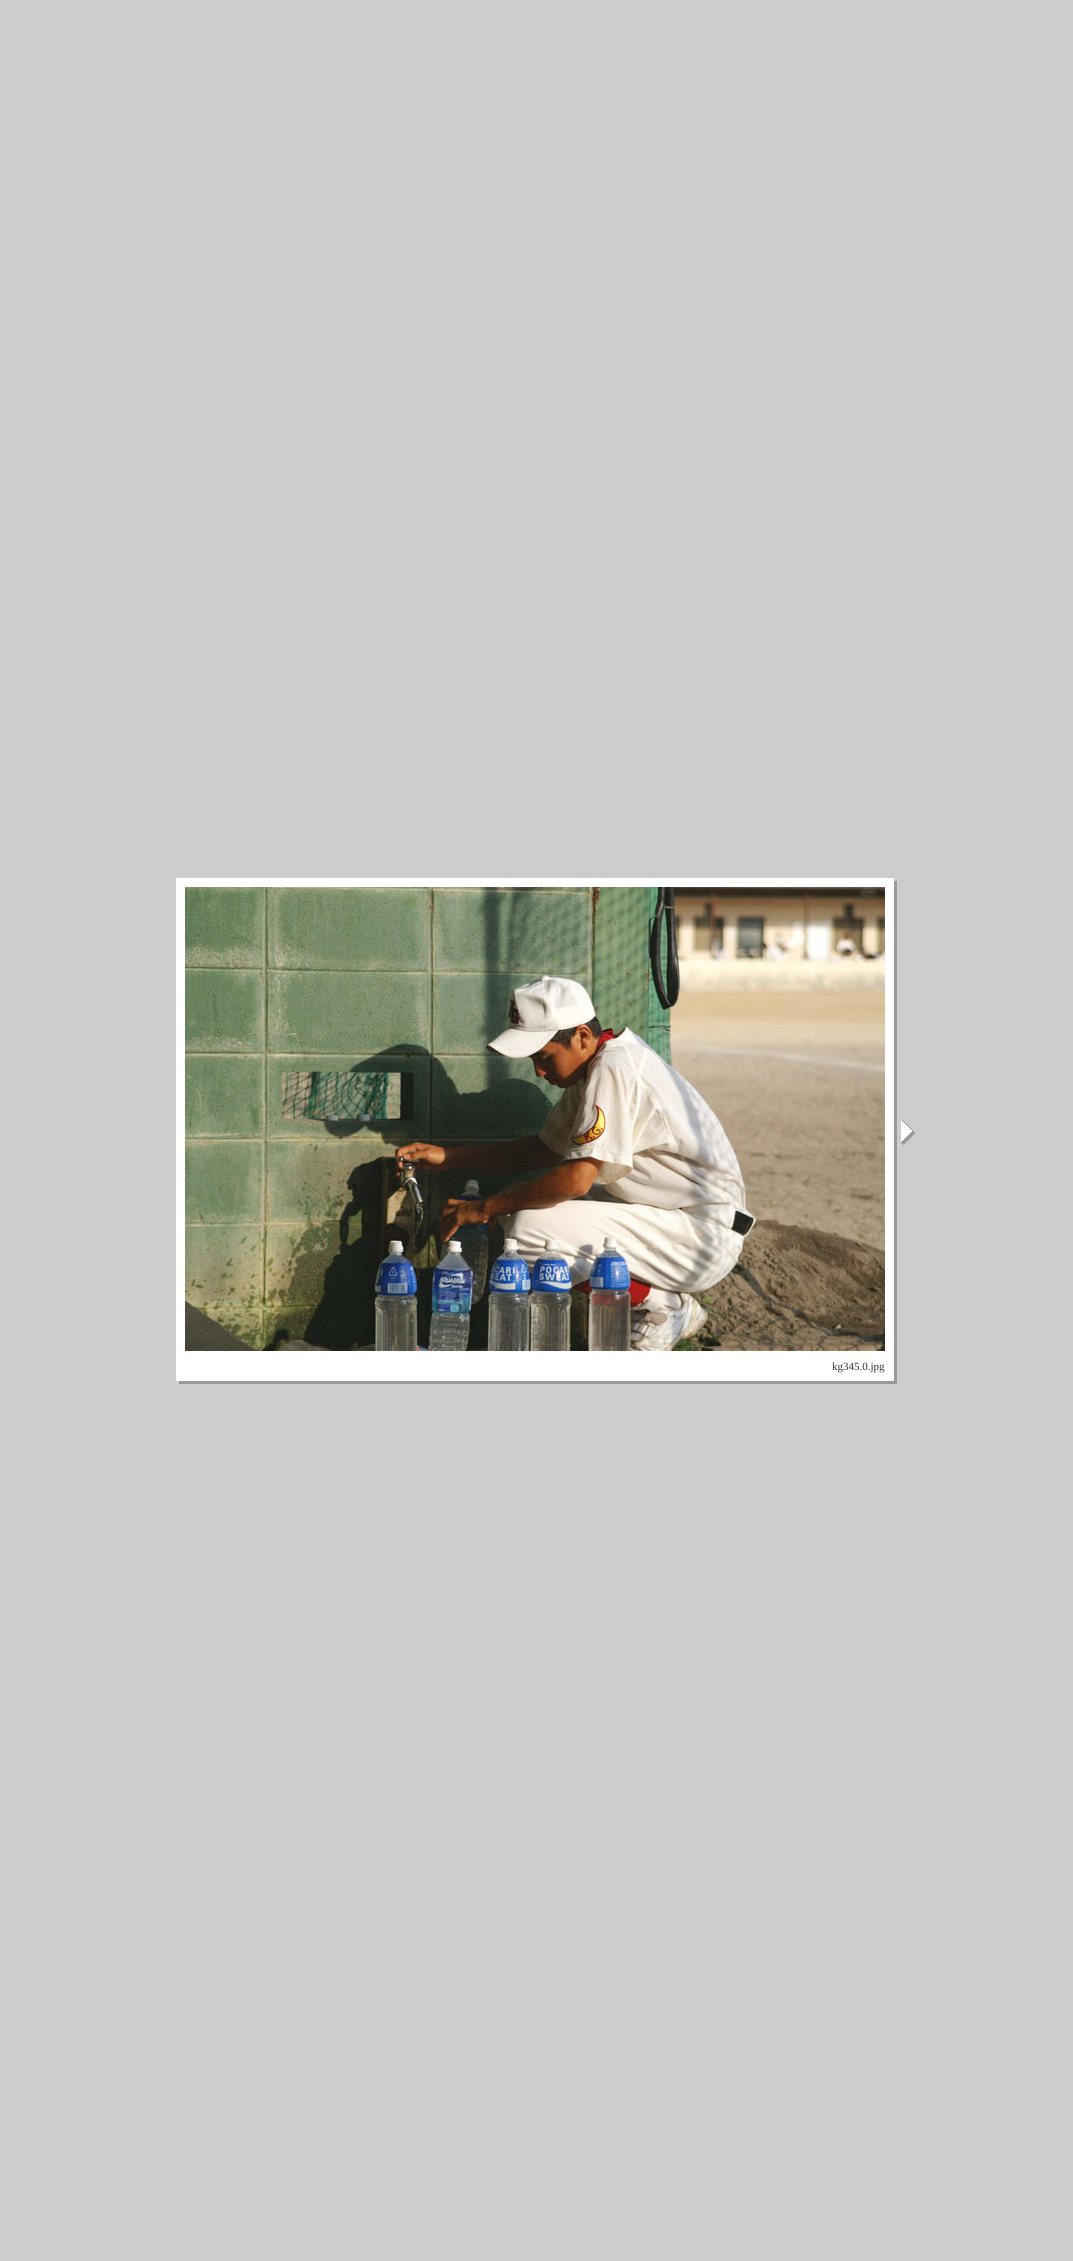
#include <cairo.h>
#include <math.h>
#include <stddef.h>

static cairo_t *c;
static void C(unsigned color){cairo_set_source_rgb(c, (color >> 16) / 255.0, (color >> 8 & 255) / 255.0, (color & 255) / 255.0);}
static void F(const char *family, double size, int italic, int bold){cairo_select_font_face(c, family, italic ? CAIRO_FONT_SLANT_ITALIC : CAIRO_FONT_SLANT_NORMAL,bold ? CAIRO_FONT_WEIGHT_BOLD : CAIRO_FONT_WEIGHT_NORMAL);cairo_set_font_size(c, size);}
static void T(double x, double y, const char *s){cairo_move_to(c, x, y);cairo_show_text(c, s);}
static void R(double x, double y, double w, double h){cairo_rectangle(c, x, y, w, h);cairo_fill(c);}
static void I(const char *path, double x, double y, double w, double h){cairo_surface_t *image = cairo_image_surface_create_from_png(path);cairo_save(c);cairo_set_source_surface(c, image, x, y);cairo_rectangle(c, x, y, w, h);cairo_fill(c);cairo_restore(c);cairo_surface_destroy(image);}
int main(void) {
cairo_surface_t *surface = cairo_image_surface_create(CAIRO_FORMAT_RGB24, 1073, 2261);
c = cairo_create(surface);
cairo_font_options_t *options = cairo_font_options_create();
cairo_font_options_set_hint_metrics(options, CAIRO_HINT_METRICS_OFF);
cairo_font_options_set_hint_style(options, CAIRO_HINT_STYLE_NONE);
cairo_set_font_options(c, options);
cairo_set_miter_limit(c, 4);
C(0xcccccc);
cairo_paint(c);
I("1.png",901,1120,14,25);
C(0xffffff);
R(176,878,718,503);
I("2.png",185,887,700,464);
F("Liberation Serif",11,0,0);
C(0x333333);
T(832,1370,"kg345.0.jpg");
C(0x999999);
R(894,878,3,503);
C(0xcccccc);
R(894,878,3,3);
C(0x999999);
R(176,1381,721,3);
C(0xcccccc);
R(176,1381,3,3);
cairo_surface_write_to_png(surface, "o.png");
cairo_font_options_destroy(options);
cairo_destroy(c);
cairo_surface_destroy(surface);
return 0;
}
